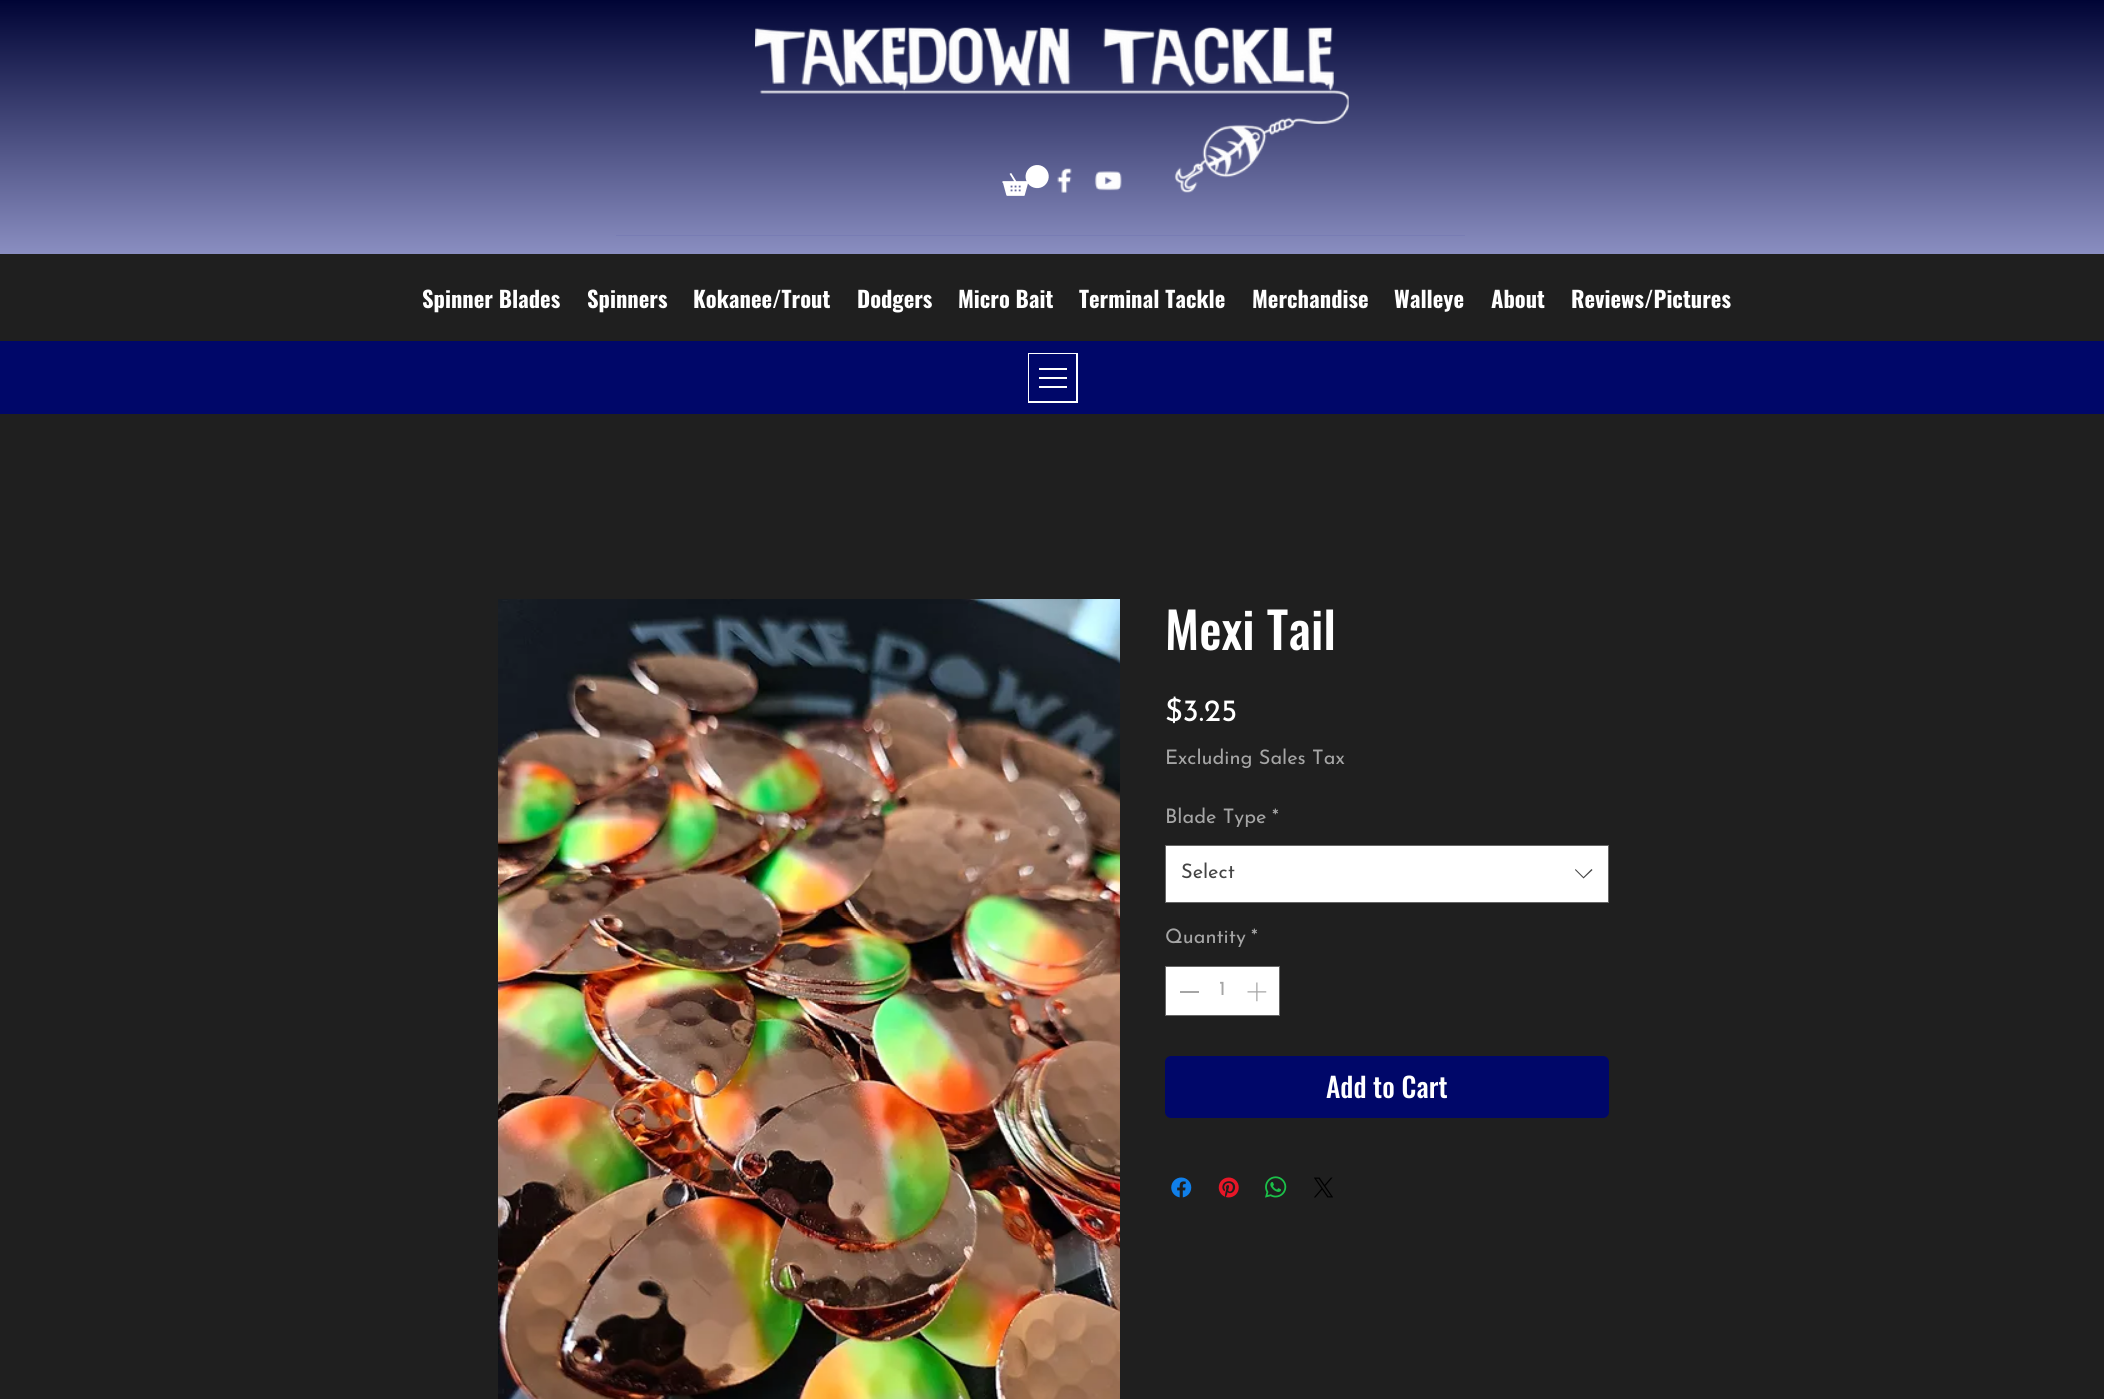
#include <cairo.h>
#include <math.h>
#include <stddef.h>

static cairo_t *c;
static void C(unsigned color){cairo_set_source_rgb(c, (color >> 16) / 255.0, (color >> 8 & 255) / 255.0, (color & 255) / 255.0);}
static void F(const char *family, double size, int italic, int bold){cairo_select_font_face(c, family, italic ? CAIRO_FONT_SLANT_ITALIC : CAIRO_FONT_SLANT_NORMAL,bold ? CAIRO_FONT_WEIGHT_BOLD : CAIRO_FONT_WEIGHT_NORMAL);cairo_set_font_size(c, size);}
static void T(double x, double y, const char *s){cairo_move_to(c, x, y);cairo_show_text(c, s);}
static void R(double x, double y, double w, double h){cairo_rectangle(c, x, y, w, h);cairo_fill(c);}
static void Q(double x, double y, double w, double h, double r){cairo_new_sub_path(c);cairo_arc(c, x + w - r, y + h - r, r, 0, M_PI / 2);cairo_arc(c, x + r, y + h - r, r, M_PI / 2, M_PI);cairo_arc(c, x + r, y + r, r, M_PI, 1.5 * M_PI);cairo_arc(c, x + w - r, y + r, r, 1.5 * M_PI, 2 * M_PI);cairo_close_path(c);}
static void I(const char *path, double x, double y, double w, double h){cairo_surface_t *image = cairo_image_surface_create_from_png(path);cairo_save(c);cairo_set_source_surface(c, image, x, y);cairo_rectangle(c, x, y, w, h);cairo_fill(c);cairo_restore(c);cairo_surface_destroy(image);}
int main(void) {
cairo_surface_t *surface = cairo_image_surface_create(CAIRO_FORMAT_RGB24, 2104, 1399);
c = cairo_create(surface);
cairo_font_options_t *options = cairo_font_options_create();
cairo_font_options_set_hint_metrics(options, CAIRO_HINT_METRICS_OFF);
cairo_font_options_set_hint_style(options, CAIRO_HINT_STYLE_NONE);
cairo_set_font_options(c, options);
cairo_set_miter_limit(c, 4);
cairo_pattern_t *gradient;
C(0x1f1f1f);
cairo_paint(c);
gradient = cairo_pattern_create_linear(1053,341,1053,0);
cairo_pattern_add_color_stop_rgba(gradient,.12,0.639,0.655,0.855,1);
cairo_pattern_add_color_stop_rgba(gradient,1,0,0.016,0.208,1);
cairo_set_source(c,gradient);
cairo_pattern_destroy(gradient);
R(0,0,2104,254);
I("1.png",755,27,594,166);
I("2.png",1002,165,47,31);
I("3.png",1057,168,15,25);
I("4.png",1094,171,28,20);
C(0x787cb4);
R(616,235,849,1);
F("Oswald",22.5,0,1);
C(0xffffff);
T(422,308,"Spinner Blades");
T(587,308,"Spinners");
T(693,308,"Kokanee/Trout");
T(857,308,"Dodgers");
T(958,308,"Micro Bait");
T(1079,308,"Terminal Tackle");
T(1252,308,"Merchandise");
T(1394,308,"Walleye");
T(1491,308,"About");
T(1571,308,"Reviews/Pictures");
C(0x000769);
R(0,341,2104,73);
C(0xffffff);
R(1039,368,28,2);
R(1039,377,28,2);
R(1039,386,28,2);
cairo_new_path(c);
cairo_move_to(c,1028,353);
cairo_line_to(c,1028,403);
cairo_line_to(c,1078,403);
cairo_line_to(c,1078,353);
cairo_close_path(c);
cairo_move_to(c,1076,401);
cairo_line_to(c,1029,401);
cairo_line_to(c,1029,354);
cairo_line_to(c,1076,354);
cairo_close_path(c);
cairo_fill(c);
I("5.png",498,599,622,800);
F("Oswald Medium",50,0,0);
T(1165,650,"Mexi Tail");
F("Josefin Sans",31,0,0);
T(1165,721,"$3.25");
F("Josefin Sans",20,0,0);
C(0xa5a5a5);
T(1165,764,"Excluding Sales Tax");
T(1165,823,"Blade Type");
T(1272,823,"*");
C(0xffffff);
cairo_rectangle(c,1165.5,845.5,443,57);
cairo_fill_preserve(c);
C(0x666666);
cairo_set_line_width(c,1);
cairo_stroke(c);
C(0x444444);
T(1181,878,"Select");
cairo_set_fill_rule(c,CAIRO_FILL_RULE_EVEN_ODD);
cairo_new_path(c);
cairo_move_to(c,1591.5,869);
cairo_line_to(c,1592.5,870);
cairo_line_to(c,1583.5,878.5);
cairo_line_to(c,1575,870);
cairo_line_to(c,1575.5,869);
cairo_line_to(c,1583.5,877);
cairo_close_path(c);
cairo_fill(c);
C(0xa5a5a5);
T(1165,943,"Quantity");
T(1251,943,"*");
C(0xffffff);
cairo_rectangle(c,1165.5,966.5,114,49);
cairo_fill_preserve(c);
C(0x666666);
cairo_stroke(c);
C(0xa5a5a5);
R(1180,991,19,2);
T(1219,995,"1");
I("6.png",1247,982,20,20);
C(0x000769);
Q(1165,1056,444,62,6);
cairo_fill(c);
F("Oswald Medium",27.5,0,0);
C(0xffffff);
T(1326,1098,"Add to Cart");
I("7.png",1171,1177,21,21);
I("8.png",1218,1177,21,21);
I("9.png",1265,1176,22,22);
I("10.png",1314,1177,19,21);
cairo_surface_write_to_png(surface, "o.png");
cairo_font_options_destroy(options);
cairo_destroy(c);
cairo_surface_destroy(surface);
return 0;
}
